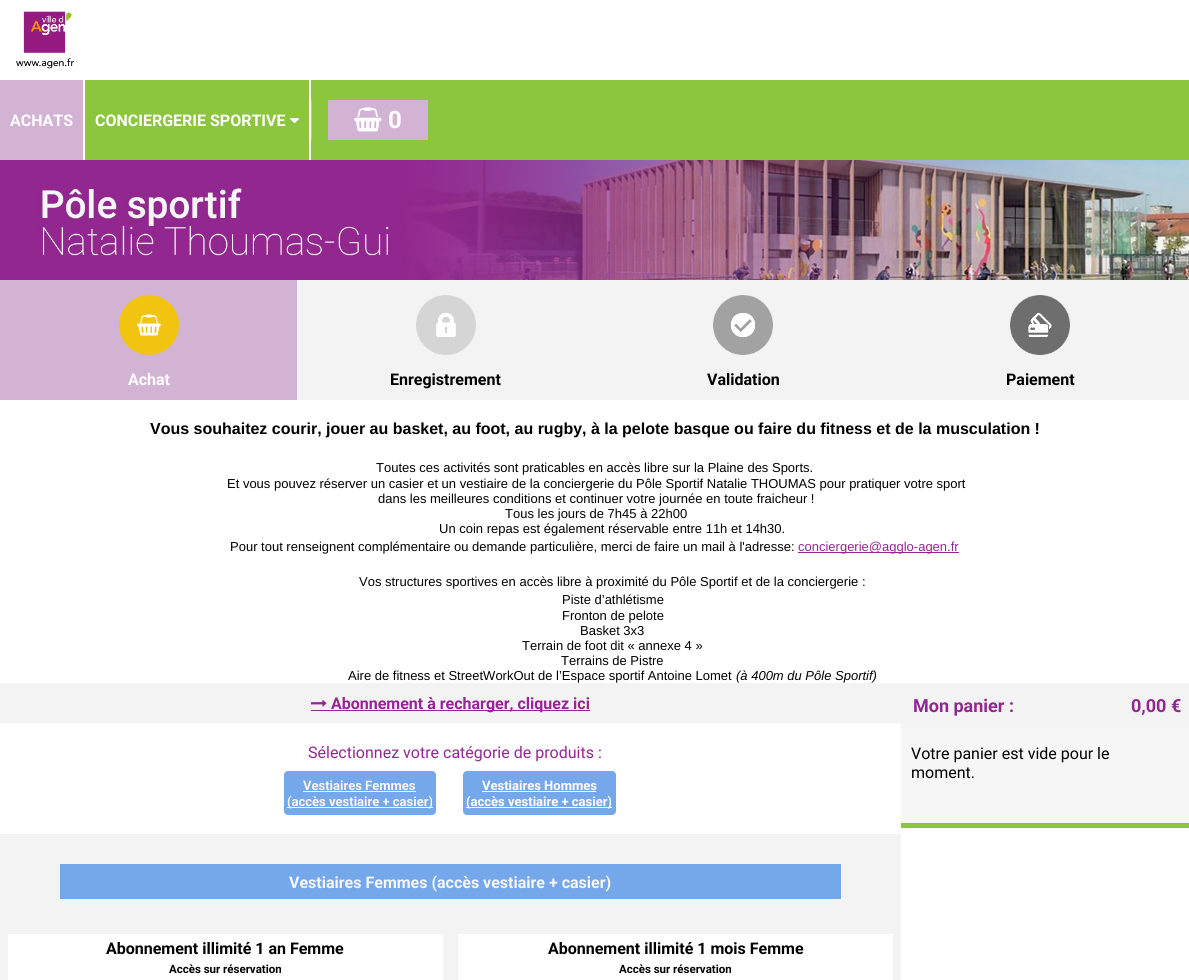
#include <cairo.h>
#include <math.h>
#include <stddef.h>

static cairo_t *c;
static void C(unsigned color){cairo_set_source_rgb(c, (color >> 16) / 255.0, (color >> 8 & 255) / 255.0, (color & 255) / 255.0);}
static void F(const char *family, double size, int italic, int bold){cairo_select_font_face(c, family, italic ? CAIRO_FONT_SLANT_ITALIC : CAIRO_FONT_SLANT_NORMAL,bold ? CAIRO_FONT_WEIGHT_BOLD : CAIRO_FONT_WEIGHT_NORMAL);cairo_set_font_size(c, size);}
static void T(double x, double y, const char *s){cairo_move_to(c, x, y);cairo_show_text(c, s);}
static void R(double x, double y, double w, double h){cairo_rectangle(c, x, y, w, h);cairo_fill(c);}
static void Q(double x, double y, double w, double h, double r){cairo_new_sub_path(c);cairo_arc(c, x + w - r, y + h - r, r, 0, M_PI / 2);cairo_arc(c, x + r, y + h - r, r, M_PI / 2, M_PI);cairo_arc(c, x + r, y + r, r, M_PI, 1.5 * M_PI);cairo_arc(c, x + w - r, y + r, r, 1.5 * M_PI, 2 * M_PI);cairo_close_path(c);}
static void I(const char *path, double x, double y, double w, double h){cairo_surface_t *image = cairo_image_surface_create_from_png(path);cairo_save(c);cairo_set_source_surface(c, image, x, y);cairo_rectangle(c, x, y, w, h);cairo_fill(c);cairo_restore(c);cairo_surface_destroy(image);}
int main(void) {
cairo_surface_t *surface = cairo_image_surface_create(CAIRO_FORMAT_RGB24, 1189, 980);
c = cairo_create(surface);
cairo_font_options_t *options = cairo_font_options_create();
cairo_font_options_set_hint_metrics(options, CAIRO_HINT_METRICS_OFF);
cairo_font_options_set_hint_style(options, CAIRO_HINT_STYLE_NONE);
cairo_set_font_options(c, options);
cairo_set_miter_limit(c, 4);
C(0xffffff);
cairo_paint(c);
I("1.png",15,11,60,58);
C(0x8cc63e);
R(311,80,878,80);
I("2.png",0,160,1189,120);
C(0xd3b3d4);
R(0,80,83,80);
F("Roboto",16,0,1);
C(0xffffff);
T(10,126,"ACHATS");
C(0x8cc63e);
R(85,80,224,80);
C(0xffffff);
T(95,126,"CONCIERGERIE SPORTIVE");
I("3.png",290,118,10,6);
C(0xd3b3d4);
R(311,100,1,40);
R(328,100,100,40);
I("4.png",354,107,28,25);
F("Roboto",24,0,1);
C(0xffffff);
T(388,128,"0");
C(0xf3f3f3);
R(297,280,892,120);
C(0xd3b3d4);
R(0,280,297,120);
I("5.png",119,295,60,60);
I("6.png",416,295,60,60);
I("7.png",713,295,60,60);
I("8.png",1010,295,60,60);
F("Roboto",16,0,1);
C(0xffffff);
T(128,385,"Achat");
C(0x000000);
T(390,385,"Enregistrement");
T(707,385,"Validation");
T(1006,385,"Paiement");
F("Liberation Sans",16,0,1);
T(150,434,"Vous souhaitez courir, jouer au basket, au foot, au rugby, à la pelote basque ou faire du fitness et de la musculation !");
F("Liberation Sans",13,0,0);
T(376,472,"Toutes ces activités sont praticables en accès libre sur la Plaine des Sports.");
T(227,488,"Et vous pouvez réserver un casier et un vestiaire de la conciergerie du Pôle Sportif Natalie THOUMAS pour pratiquer votre sport");
T(378,503,"dans les meilleures conditions et continuer votre journée en toute fraicheur !");
T(505,518,"Tous les jours de 7h45 à 22h00");
T(439,533,"Un coin repas est également réservable entre 11h et 14h30.");
T(230,551,"Pour tout renseignent complémentaire ou demande particulière, merci de faire un mail à l'adresse:");
C(0x92278f);
R(798,552,161,1);
T(798,551,"conciergerie@agglo-agen.fr");
C(0x000000);
T(359,586,"Vos structures sportives en accès libre à proximité du Pôle Sportif et de la conciergerie :");
T(562,604,"Piste d’athlétisme");
T(562,620,"Fronton de pelote");
T(580,635,"Basket 3x3");
T(522,650,"Terrain de foot dit « annexe 4 »");
T(561,665,"Terrains de Pistre");
T(348,680,"Aire de fitness et StreetWorkOut de l’Espace sportif Antoine Lomet");
F("Liberation Sans",13,1,0);
T(736,680,"(à 400m du Pôle Sportif)");
C(0xf3f3f3);
R(0,683,901,40);
I("9.png",311,699,16,8);
C(0x92278f);
R(311,710,279,1);
F("Roboto",16,0,1);
T(331,709,"Abonnement à recharger, cliquez ici");
F("Roboto",16,0,0);
T(308,758,"Sélectionnez votre catégorie de produits :");
C(0x75a8eb);
Q(284,771,152,44,4);
cairo_fill(c);
F("Roboto",13,0,1);
C(0xf7f7f7);
T(303,790,"Vestiaires Femmes");
R(303,791,113,1);
R(287,807,146,1);
T(287,806,"(accès vestiaire + casier)");
C(0x75a8eb);
Q(463,771,153,44,4);
cairo_fill(c);
C(0xffffff);
T(482,790,"Vestiaires Hommes");
R(482,791,114,1);
R(466,807,146,1);
T(466,806,"(accès vestiaire + casier)");
C(0xf3f3f3);
R(0,834,901,146);
C(0x75a8eb);
R(60,864,781,35);
F("Roboto",16,0,1);
C(0xf7f7f7);
T(289,888,"Vestiaires Femmes (accès vestiaire + casier)");
C(0xffffff);
R(8,934,435,46);
C(0x000000);
T(106,954,"Abonnement illimité 1 an Femme");
F("Roboto",11.5,0,1);
T(169,973,"Accès sur réservation");
C(0xffffff);
R(458,934,435,46);
F("Roboto",16,0,1);
C(0x000000);
T(548,954,"Abonnement illimité 1 mois Femme");
F("Roboto",11.5,0,1);
T(619,973,"Accès sur réservation");
C(0xf3f3f3);
R(901,683,288,45);
F("Roboto",18,0,1);
C(0x92278f);
T(913,712,"Mon panier :");
T(1131,712,"0,00 €");
C(0xf6f6f6);
R(901,728,288,95);
F("Roboto",16,0,0);
C(0x000000);
T(911,759,"Votre panier est vide pour le");
T(911,778,"moment.");
C(0x8cc63e);
R(901,823,288,5);
cairo_surface_write_to_png(surface, "o.png");
cairo_font_options_destroy(options);
cairo_destroy(c);
cairo_surface_destroy(surface);
return 0;
}
